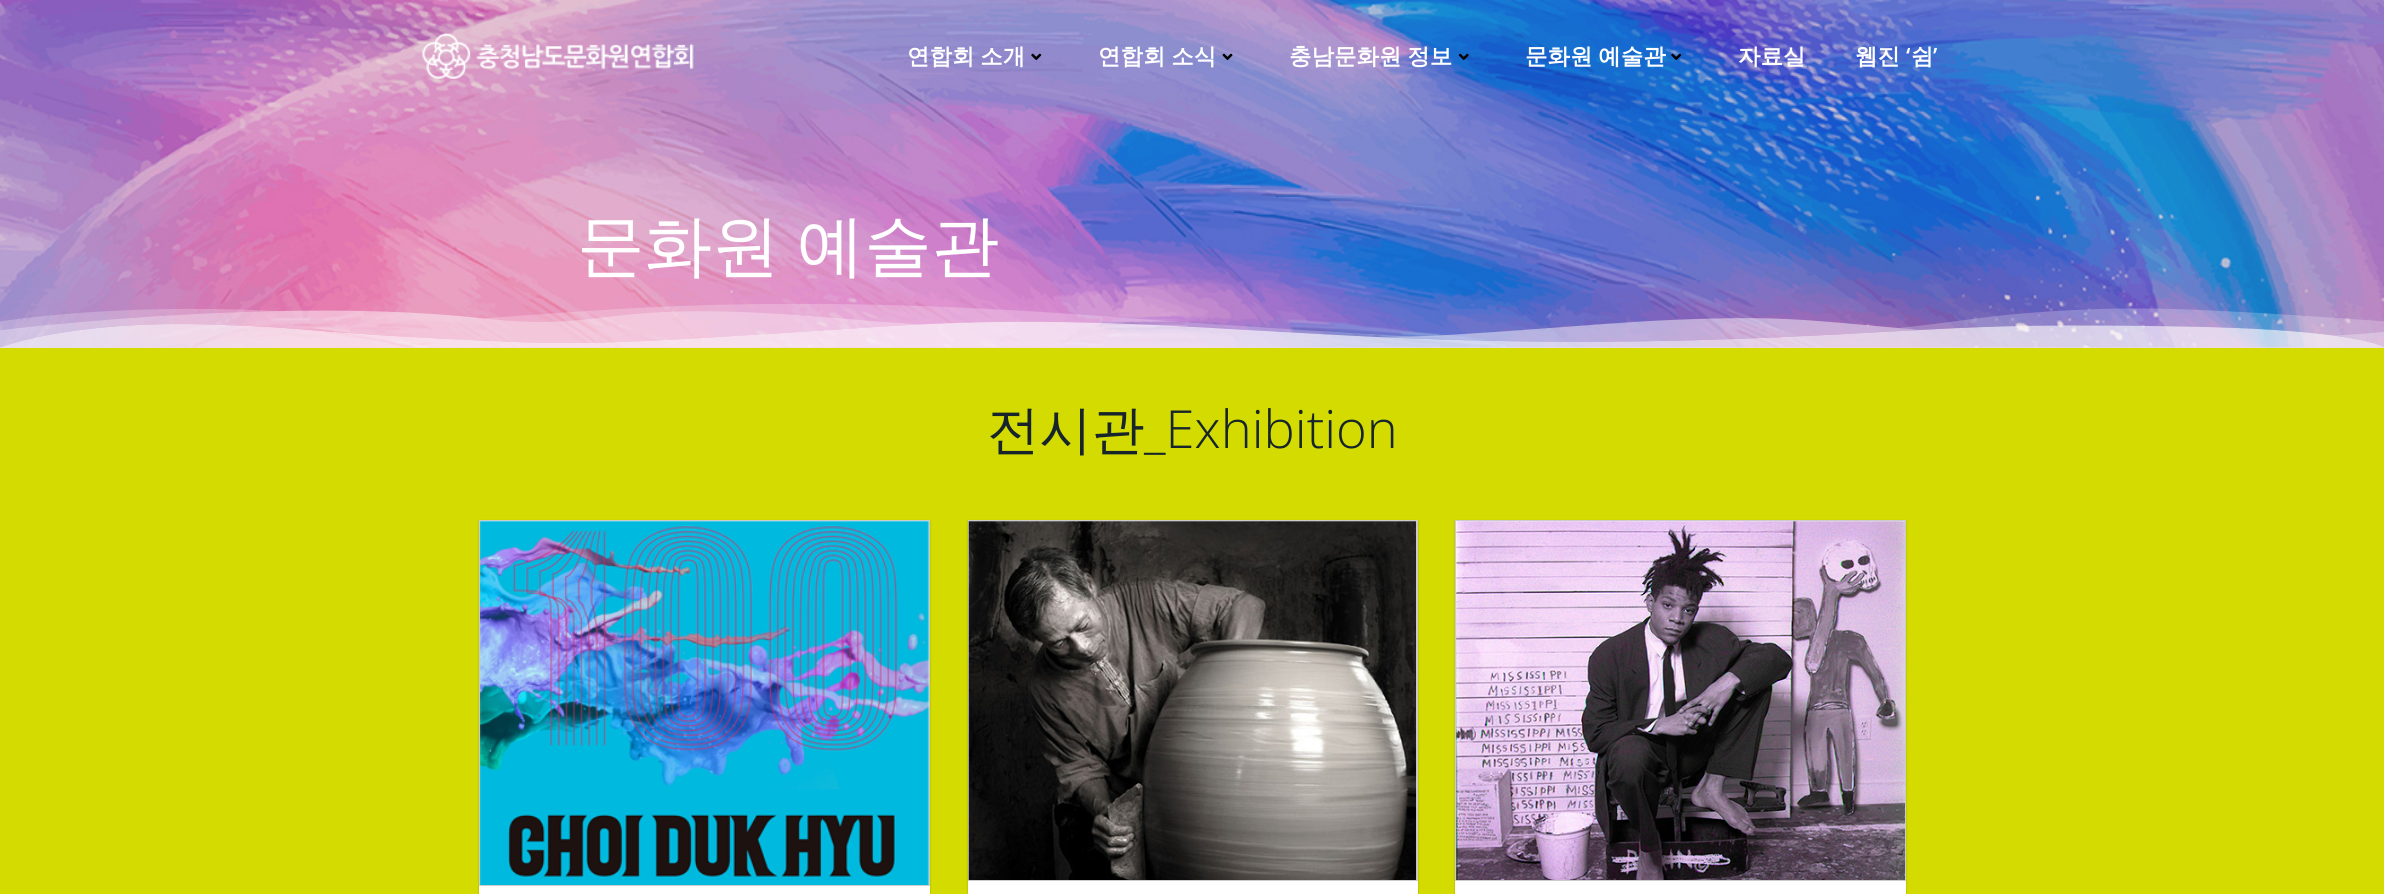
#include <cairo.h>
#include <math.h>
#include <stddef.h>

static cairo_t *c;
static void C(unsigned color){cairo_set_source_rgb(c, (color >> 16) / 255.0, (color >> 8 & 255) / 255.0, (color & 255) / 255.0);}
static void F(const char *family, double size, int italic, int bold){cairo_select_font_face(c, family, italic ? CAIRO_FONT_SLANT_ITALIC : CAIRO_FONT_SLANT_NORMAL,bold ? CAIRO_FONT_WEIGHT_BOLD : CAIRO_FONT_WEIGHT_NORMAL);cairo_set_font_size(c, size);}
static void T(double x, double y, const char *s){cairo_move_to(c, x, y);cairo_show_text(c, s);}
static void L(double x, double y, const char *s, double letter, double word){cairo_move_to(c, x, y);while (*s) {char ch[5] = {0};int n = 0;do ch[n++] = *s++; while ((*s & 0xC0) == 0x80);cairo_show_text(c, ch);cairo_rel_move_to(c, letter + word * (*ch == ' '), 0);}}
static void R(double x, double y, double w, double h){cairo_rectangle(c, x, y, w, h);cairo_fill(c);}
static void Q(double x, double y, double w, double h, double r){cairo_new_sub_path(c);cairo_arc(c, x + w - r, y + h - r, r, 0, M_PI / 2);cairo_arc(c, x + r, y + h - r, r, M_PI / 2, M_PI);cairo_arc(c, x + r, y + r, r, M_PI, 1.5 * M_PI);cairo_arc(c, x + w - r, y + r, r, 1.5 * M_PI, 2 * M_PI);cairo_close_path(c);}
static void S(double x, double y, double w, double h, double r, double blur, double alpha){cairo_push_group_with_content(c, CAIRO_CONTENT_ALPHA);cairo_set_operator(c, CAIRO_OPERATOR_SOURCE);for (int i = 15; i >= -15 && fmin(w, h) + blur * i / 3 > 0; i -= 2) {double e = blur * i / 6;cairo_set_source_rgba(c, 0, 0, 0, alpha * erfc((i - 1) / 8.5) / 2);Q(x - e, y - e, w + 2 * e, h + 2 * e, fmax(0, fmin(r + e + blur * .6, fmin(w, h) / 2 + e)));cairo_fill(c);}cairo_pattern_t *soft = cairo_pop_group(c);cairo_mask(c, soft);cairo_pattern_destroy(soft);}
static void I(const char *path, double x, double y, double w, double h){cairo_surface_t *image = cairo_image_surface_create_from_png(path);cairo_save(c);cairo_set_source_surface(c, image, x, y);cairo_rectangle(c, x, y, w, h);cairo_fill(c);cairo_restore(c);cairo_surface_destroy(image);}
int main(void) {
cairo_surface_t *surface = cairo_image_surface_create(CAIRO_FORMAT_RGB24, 2384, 894);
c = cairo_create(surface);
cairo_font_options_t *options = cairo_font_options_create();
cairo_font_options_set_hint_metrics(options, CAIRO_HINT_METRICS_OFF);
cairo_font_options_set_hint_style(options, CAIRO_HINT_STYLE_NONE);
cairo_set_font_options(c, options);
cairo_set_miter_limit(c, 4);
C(0xead6d7);
cairo_paint(c);
I("6.png",0,0,2384,348);
I("1.png",422,33,272,46);
F("WenQuanYi Zen Hei",22.5,0,1);
C(0xffffff);
L(907,64,"연합회 소개",0,-1);
I("2.png",1031,53,11,8);
L(1098,64,"연합회 소식",0,-1);
I("3.png",1222,53,11,8);
L(1289,64,"충남문화원 정보",0,-1);
I("4.png",1458,53,11,8);
L(1525,64,"문화원 예술관",0,-1);
I("5.png",1671,53,11,8);
T(1738,64,"자료실");
T(1855,64,"웹진");
F("Open Sans SemiBold",22.5,0,0);
T(1906,64,"‘");
F("WenQuanYi Zen Hei",22.5,0,1);
T(1911,64,"쉼");
F("Open Sans SemiBold",22.5,0,0);
T(1933,64,"’");
F("WenQuanYi Zen Hei Medium",67.5,0,0);
L(577,269,"문화원 예술관",0,-3);
I("7.png",0,304,2384,44);
C(0xd3db01);
R(0,348,2384,546);
F("WenQuanYi Zen Hei Medium",52.5,0,0);
C(0x17252a);
T(987,448,"전시관");
F("Open Sans Light",52.5,0,0);
T(1144,448,"_Exhibition");
C(0x000000);
S(479,521,451,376,0,1,.22);
C(0xffffff);
R(479,521,451,373);
cairo_rectangle(c,479.5,520.5,450,365);
C(0xcccccc);
cairo_set_line_width(c,1);
cairo_stroke(c);
I("8.png",480,521,449,364);
C(0x000000);
S(968,521,450,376,0,1,.22);
C(0xffffff);
R(968,521,450,373);
cairo_rectangle(c,968.5,520.5,449,360);
C(0xcccccc);
cairo_stroke(c);
I("9.png",968,521,449,359);
C(0x000000);
S(1455,521,451,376,0,1,.22);
C(0xffffff);
R(1455,521,451,373);
cairo_rectangle(c,1455.5,520.5,450,360);
C(0xcccccc);
cairo_stroke(c);
I("10.png",1456,521,449,359);
cairo_surface_write_to_png(surface, "o.png");
cairo_font_options_destroy(options);
cairo_destroy(c);
cairo_surface_destroy(surface);
return 0;
}
